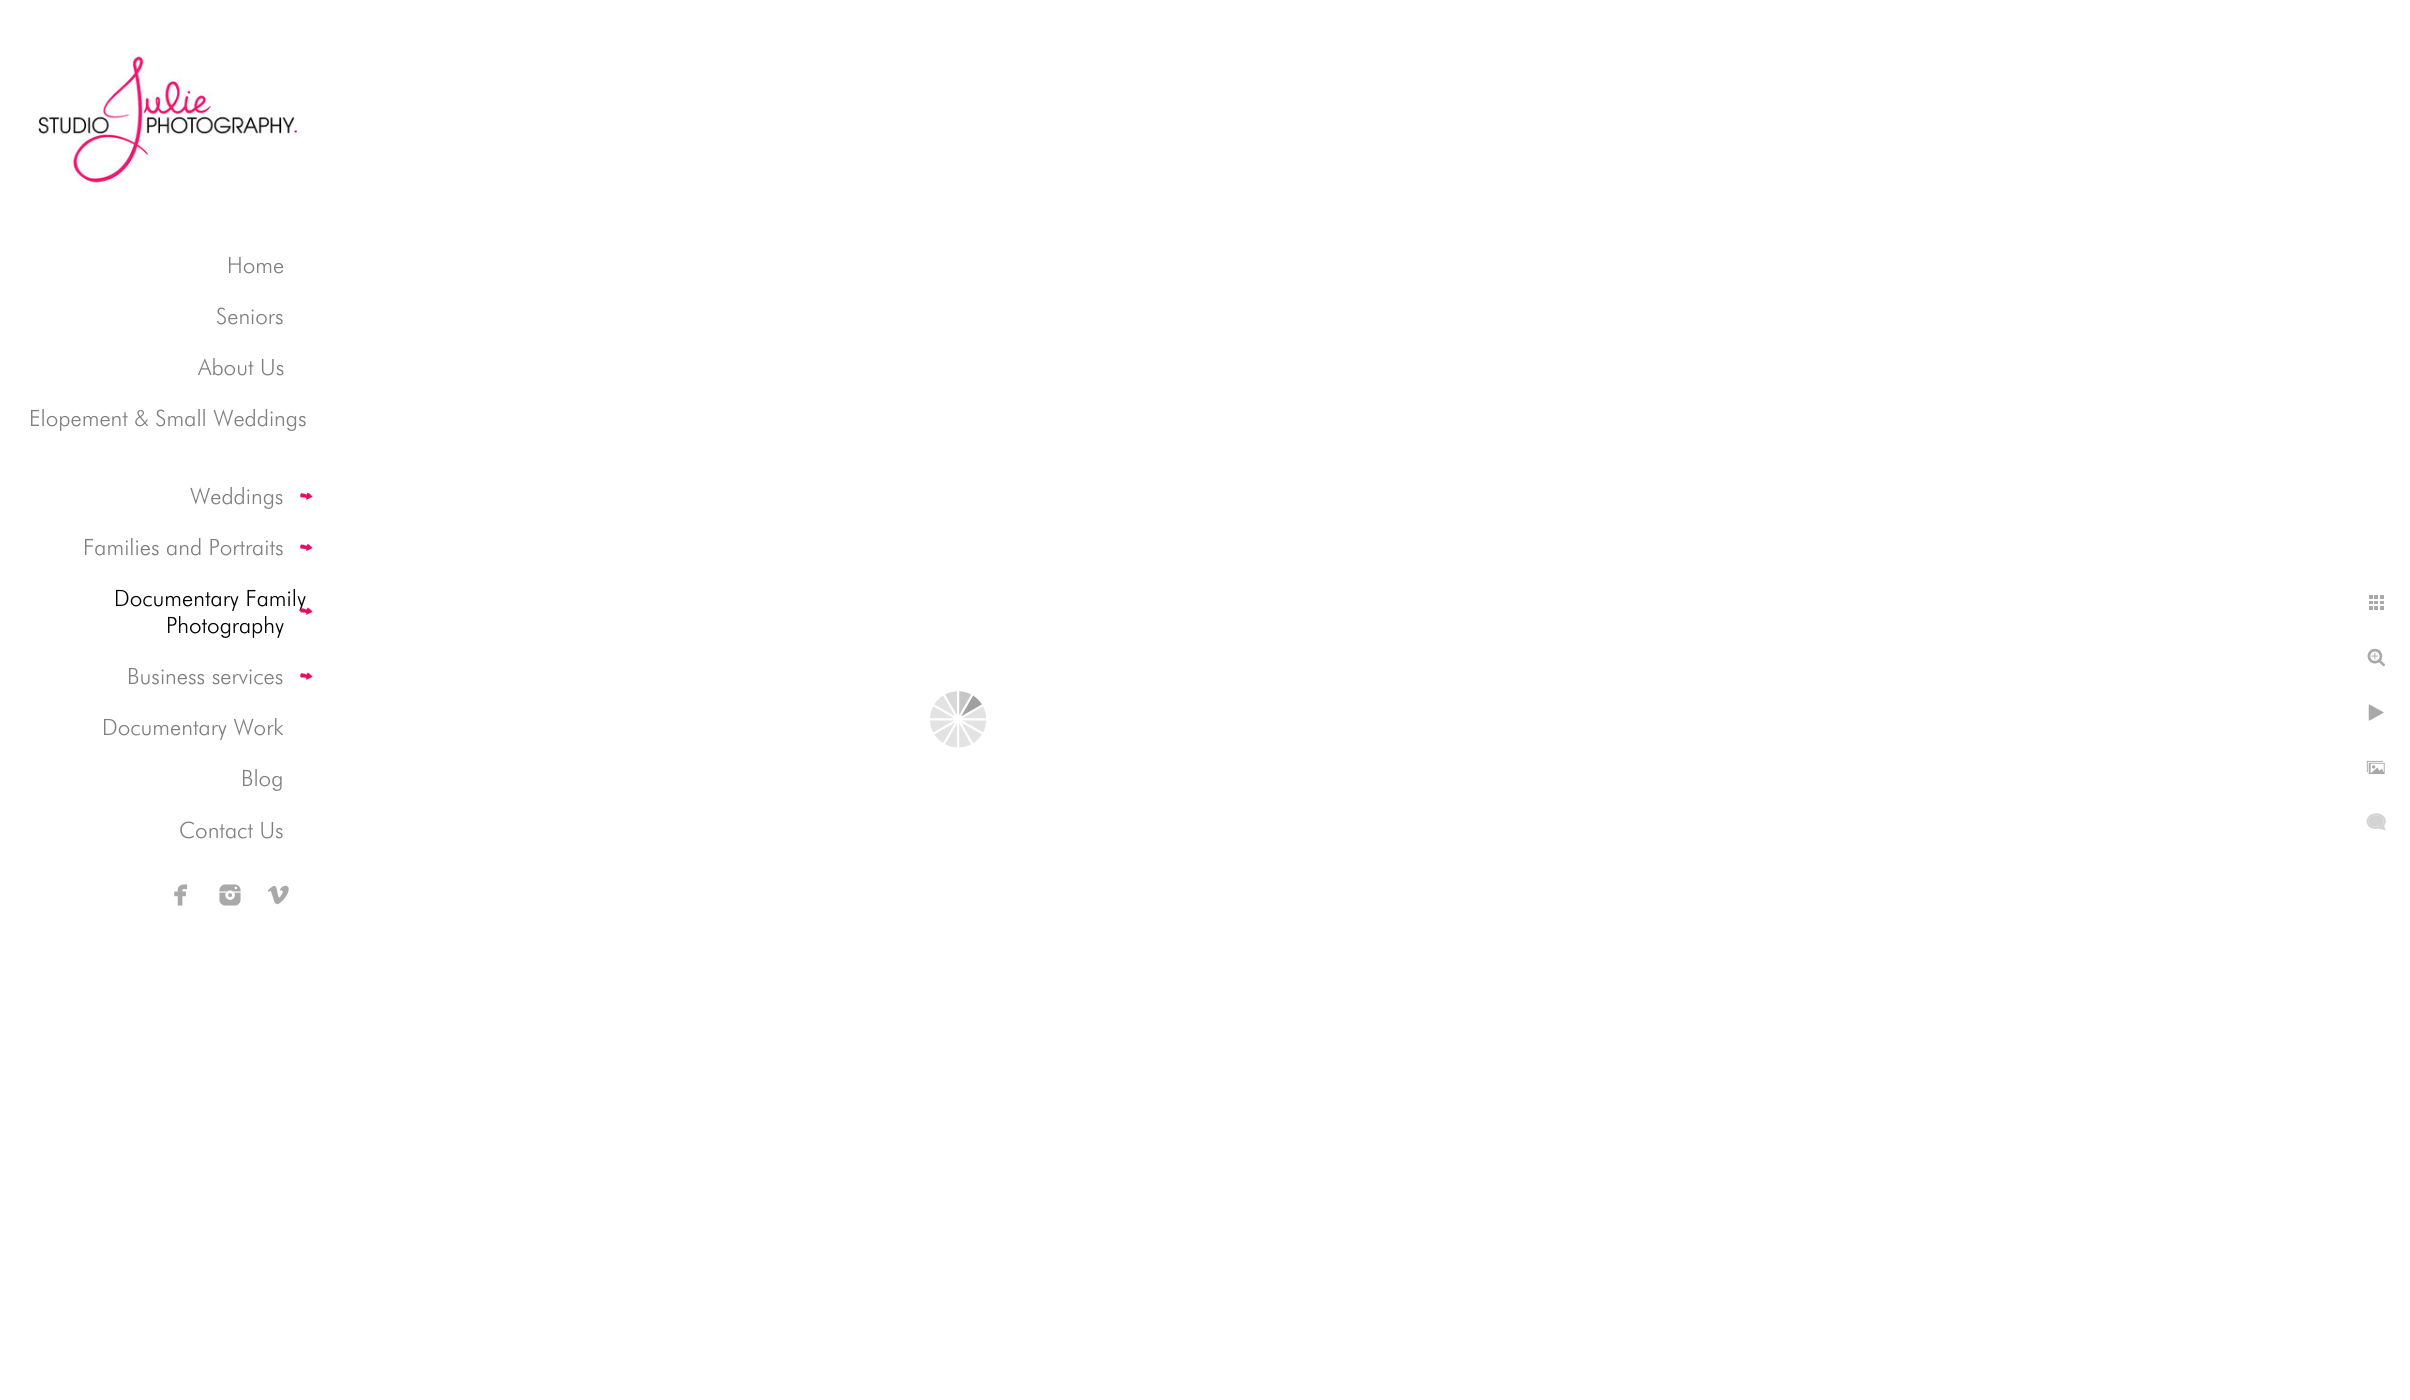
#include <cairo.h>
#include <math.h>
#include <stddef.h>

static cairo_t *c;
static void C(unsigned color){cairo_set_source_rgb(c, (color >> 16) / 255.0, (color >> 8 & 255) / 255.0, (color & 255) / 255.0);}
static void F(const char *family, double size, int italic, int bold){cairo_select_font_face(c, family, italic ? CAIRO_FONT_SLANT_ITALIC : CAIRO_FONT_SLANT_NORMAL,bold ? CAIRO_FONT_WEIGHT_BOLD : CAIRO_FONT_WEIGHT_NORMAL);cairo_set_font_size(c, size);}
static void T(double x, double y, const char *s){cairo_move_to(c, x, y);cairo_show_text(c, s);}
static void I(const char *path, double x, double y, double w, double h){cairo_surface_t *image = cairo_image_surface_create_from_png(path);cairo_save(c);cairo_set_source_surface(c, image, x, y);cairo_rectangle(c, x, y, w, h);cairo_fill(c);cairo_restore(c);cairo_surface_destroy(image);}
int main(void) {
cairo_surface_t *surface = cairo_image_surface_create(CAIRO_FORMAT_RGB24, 2410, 1400);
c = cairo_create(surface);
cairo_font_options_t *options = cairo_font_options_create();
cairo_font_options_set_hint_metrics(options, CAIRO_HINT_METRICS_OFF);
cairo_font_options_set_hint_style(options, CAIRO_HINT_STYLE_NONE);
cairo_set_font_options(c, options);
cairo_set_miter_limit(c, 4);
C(0xffffff);
cairo_paint(c);
I("1.png",37,55,265,134);
F("Futura Black",22.5,0,0);
C(0x808080);
T(227,273,"Home");
T(216,324,"Seniors");
T(198,375,"About Us");
T(29,426,"Elopement & Small Weddings");
T(190,504,"Weddings");
I("2.png",300,492,13,8);
T(83,555,"Families and Portraits");
I("3.png",300,543,13,9);
C(0x000000);
T(114,606,"Documentary Family");
I("4.png",300,607,13,8);
T(166,633,"Photography");
C(0x808080);
T(127,684,"Business services");
I("2.png",300,672,13,8);
T(102,735,"Documentary Work");
T(241,786,"Blog");
T(179,838,"Contact Us");
I("5.png",174,884,14,22);
I("6.png",219,884,22,22);
I("7.png",267,885,22,20);
I("8.png",930,691,56,57);
I("9.png",2369,595,15,15);
I("10.png",2367,648,18,19);
I("11.png",2368,704,16,17);
I("12.png",2366,760,19,15);
I("13.png",2366,813,20,18);
cairo_surface_write_to_png(surface, "o.png");
cairo_font_options_destroy(options);
cairo_destroy(c);
cairo_surface_destroy(surface);
return 0;
}
